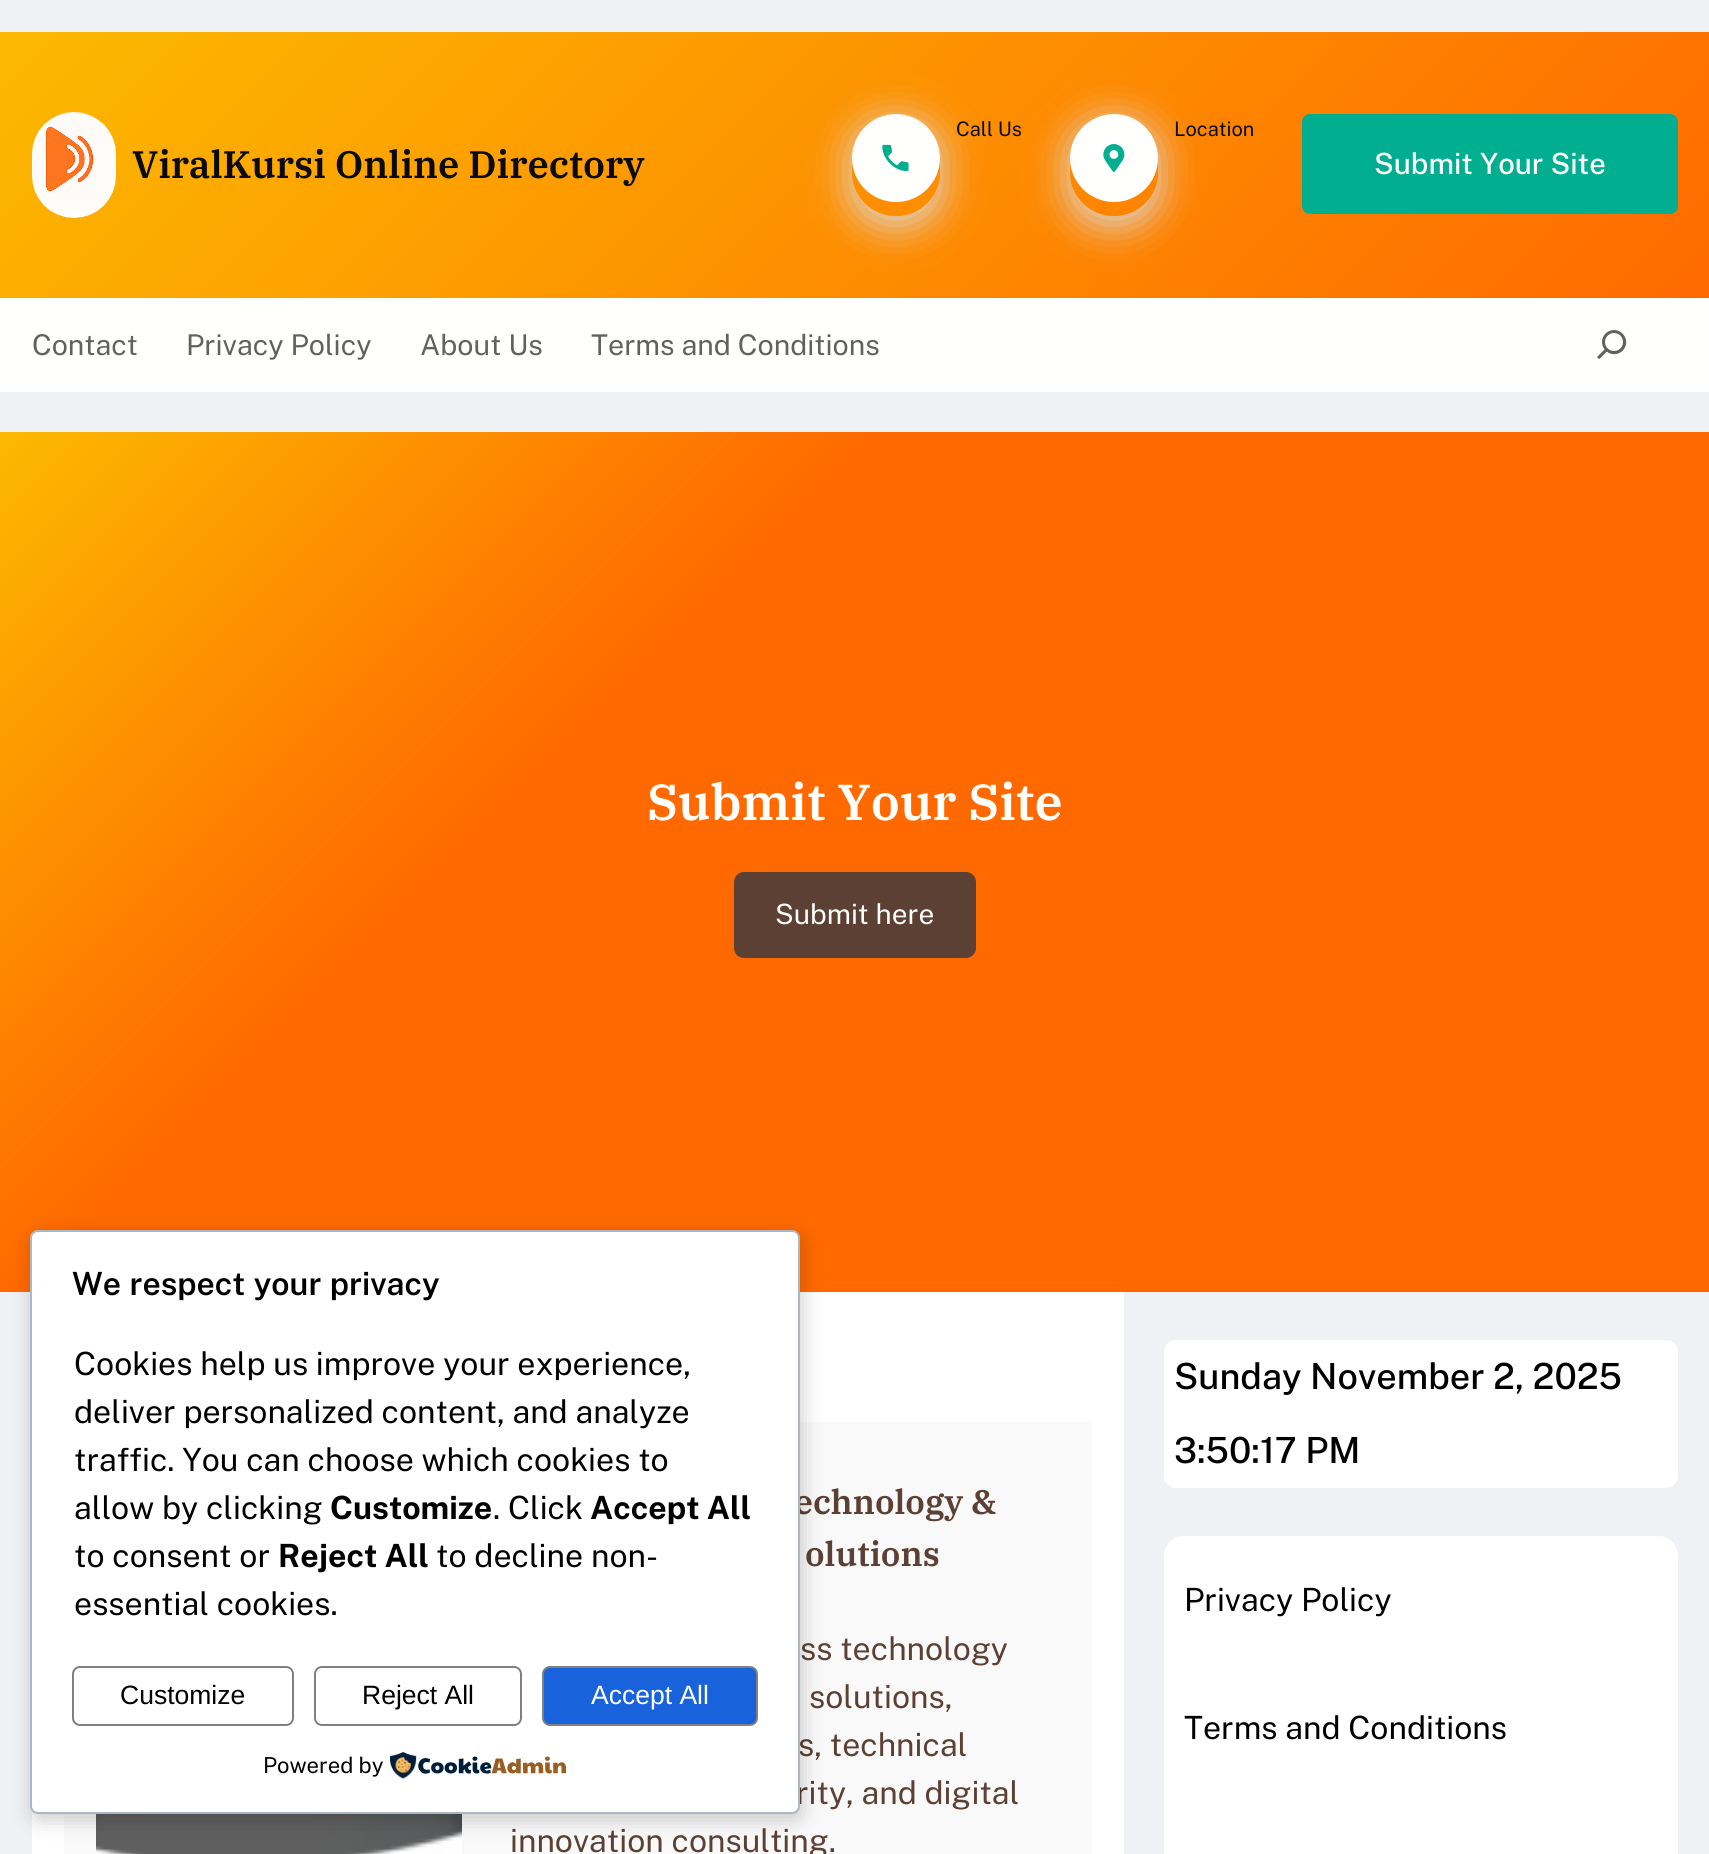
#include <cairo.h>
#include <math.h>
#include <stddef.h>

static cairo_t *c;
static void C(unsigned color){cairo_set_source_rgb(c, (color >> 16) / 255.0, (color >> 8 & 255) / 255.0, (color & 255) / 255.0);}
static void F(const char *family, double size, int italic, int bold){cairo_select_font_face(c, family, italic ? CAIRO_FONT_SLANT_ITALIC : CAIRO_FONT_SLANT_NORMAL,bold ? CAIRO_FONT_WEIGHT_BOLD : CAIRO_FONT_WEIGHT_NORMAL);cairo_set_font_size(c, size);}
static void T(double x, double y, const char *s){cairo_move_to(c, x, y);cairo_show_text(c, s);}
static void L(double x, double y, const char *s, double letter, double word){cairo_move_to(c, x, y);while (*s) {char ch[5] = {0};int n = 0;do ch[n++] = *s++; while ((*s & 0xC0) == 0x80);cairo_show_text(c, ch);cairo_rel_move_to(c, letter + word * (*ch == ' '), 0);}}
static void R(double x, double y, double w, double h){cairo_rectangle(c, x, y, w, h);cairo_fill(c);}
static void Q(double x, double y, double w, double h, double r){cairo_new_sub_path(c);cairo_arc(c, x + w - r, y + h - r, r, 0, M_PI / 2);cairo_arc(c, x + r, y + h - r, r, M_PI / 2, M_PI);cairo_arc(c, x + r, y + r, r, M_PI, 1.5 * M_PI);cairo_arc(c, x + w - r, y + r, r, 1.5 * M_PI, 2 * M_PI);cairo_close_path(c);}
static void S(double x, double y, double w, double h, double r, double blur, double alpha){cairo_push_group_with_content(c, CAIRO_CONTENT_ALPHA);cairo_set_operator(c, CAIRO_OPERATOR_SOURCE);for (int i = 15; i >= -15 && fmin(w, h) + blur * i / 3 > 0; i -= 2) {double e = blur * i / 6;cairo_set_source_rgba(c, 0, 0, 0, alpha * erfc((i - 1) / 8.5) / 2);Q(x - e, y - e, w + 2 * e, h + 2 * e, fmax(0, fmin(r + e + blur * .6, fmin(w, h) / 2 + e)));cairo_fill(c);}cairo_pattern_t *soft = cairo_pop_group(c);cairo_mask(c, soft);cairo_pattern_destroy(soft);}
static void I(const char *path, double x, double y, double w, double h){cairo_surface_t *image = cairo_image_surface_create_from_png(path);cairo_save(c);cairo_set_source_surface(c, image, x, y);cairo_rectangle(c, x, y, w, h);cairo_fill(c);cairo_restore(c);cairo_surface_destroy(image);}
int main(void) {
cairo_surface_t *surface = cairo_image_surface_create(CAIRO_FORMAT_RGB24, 1709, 1854);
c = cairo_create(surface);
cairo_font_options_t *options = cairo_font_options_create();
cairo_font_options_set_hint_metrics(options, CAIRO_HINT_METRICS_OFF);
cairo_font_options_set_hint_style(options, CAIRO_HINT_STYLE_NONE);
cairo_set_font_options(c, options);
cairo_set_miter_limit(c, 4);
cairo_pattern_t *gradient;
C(0xf0f1f4);
cairo_paint(c);
C(0xfffffe);
R(0,298,1709,94);
gradient = cairo_pattern_create_linear(361,-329,1349,659);
cairo_pattern_add_color_stop_rgba(gradient,0,0.988,0.725,0,1);
cairo_pattern_add_color_stop_rgba(gradient,1,1,0.412,0,1);
cairo_set_source(c,gradient);
cairo_pattern_destroy(gradient);
R(0,32,1709,266);
I("1.png",32,112,84,106);
F("IBM Plex Serif SemiBold",38.25,0,0);
C(0x090b10);
T(132,178,"ViralKursi Online Directory");
cairo_save(c);
cairo_set_fill_rule(c,CAIRO_FILL_RULE_EVEN_ODD);
cairo_new_path(c);
cairo_move_to(c,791,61);
cairo_line_to(c,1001,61);
cairo_line_to(c,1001,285);
cairo_line_to(c,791,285);
cairo_close_path(c);
cairo_move_to(c,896,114);
cairo_curve_to(c,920.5,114,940,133.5,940,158);
cairo_line_to(c,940,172);
cairo_curve_to(c,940,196.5,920.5,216,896,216);
cairo_curve_to(c,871.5,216,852,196.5,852,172);
cairo_line_to(c,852,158);
cairo_curve_to(c,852,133.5,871.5,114,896,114);
cairo_close_path(c);
cairo_clip(c);
C(0xdcd9d9);
S(852,122,88,102,44,20,1);
cairo_restore(c);
C(0xfffffe);
cairo_arc(c,896,158,44,0,2 * M_PI);
cairo_fill(c);
I("2.png",882,144,27,28);
F("Public Sans",20,0,0);
C(0x090b10);
T(956,136,"Call Us");
cairo_save(c);
cairo_set_fill_rule(c,CAIRO_FILL_RULE_EVEN_ODD);
cairo_new_path(c);
cairo_move_to(c,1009,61);
cairo_line_to(c,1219,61);
cairo_line_to(c,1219,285);
cairo_line_to(c,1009,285);
cairo_close_path(c);
cairo_move_to(c,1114,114);
cairo_curve_to(c,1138.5,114,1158,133.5,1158,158);
cairo_line_to(c,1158,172);
cairo_curve_to(c,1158,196.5,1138.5,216,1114,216);
cairo_curve_to(c,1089.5,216,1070,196.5,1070,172);
cairo_line_to(c,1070,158);
cairo_curve_to(c,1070,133.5,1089.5,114,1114,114);
cairo_close_path(c);
cairo_clip(c);
C(0xdcd9d9);
S(1070,122,88,102,44,20,1);
cairo_restore(c);
C(0xfffffe);
cairo_arc(c,1114,158,44,0,2 * M_PI);
cairo_fill(c);
I("3.png",1103,144,22,28);
C(0x090b10);
T(1174,136,"Location");
C(0x01ae8f);
Q(1302,114,376,100,8);
cairo_fill(c);
F("Public Sans Medium",29.25,0,0);
C(0xfffffe);
T(1374,174,"Submit Your Site");
F("Public Sans",28.6,0,0);
C(0x616161);
T(32,355,"Contact");
T(186,355,"Privacy Policy");
T(420,355,"About Us");
T(591,355,"Terms and Conditions");
I("4.png",1597,330,30,30);
gradient = cairo_pattern_create_linear(213,220,1498,1505);
cairo_pattern_add_color_stop_rgba(gradient,0,0.988,0.725,0,1);
cairo_pattern_add_color_stop_rgba(gradient,.34,1,0.412,0,1);
cairo_set_source(c,gradient);
cairo_pattern_destroy(gradient);
R(0,432,1709,860);
F("IBM Plex Serif SemiBold",50.5,0,0);
C(0xfffffe);
T(647,820,"Submit Your Site");
C(0x5c4033);
Q(734,872,242,86,10);
cairo_fill(c);
F("Public Sans",28,0,0);
C(0xfffffe);
T(775,924,"Submit here");
C(0xffffff);
R(32,1292,1092,562);
C(0xf9f9f9);
R(64,1422,1028,432);
I("5.png",96,1814,366,40);
F("IBM Plex Serif SemiBold",34,0,0);
C(0x5c4033);
T(794,1514,"echnology &");
T(805,1566,"olutions");
F("Public Sans",32,0,0);
T(800,1660,"ss technology");
T(809,1708,"solutions,");
T(798,1756,"s, technical");
T(796,1804,"rity, and digital");
T(510,1852,"innovation consulting.");
C(0xffffff);
Q(1164,1340,514,148,12);
cairo_fill(c);
F("Public Sans Medium",36,0,0);
C(0x000000);
T(1174,1389,"Sunday November 2, 2025");
T(1174,1463,"3:50:17 PM");
C(0xffffff);
Q(1164,1536,514,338,20);
cairo_fill(c);
F("Public Sans",32,0,0);
C(0x000000);
T(1184,1611,"Privacy Policy");
T(1184,1739,"Terms and Conditions");
C(0x000000);
S(32,1236,770,584,8,10,.2);
C(0xffffff);
Q(31,1231,768,582,7);
cairo_fill_preserve(c);
C(0xabb8c3);
cairo_stroke(c);
F("Public Sans SemiBold",32,0,0);
C(0x000000);
L(72,1295,"We respect your privacy",0,1);
F("Public Sans",32,0,0);
T(74,1375,"Cookies help us improve your experience,");
T(74,1423,"deliver personalized content, and analyze");
T(74,1471,"traffic. You can choose which cookies to");
T(74,1519,"allow by clicking");
F("Public Sans",32,0,1);
T(330,1519,"Customize");
F("Public Sans",32,0,0);
T(493,1519,". Click");
F("Public Sans",32,0,1);
T(590,1519,"Accept All");
F("Public Sans",32,0,0);
T(74,1567,"to consent or");
F("Public Sans",32,0,1);
T(278,1567,"Reject All");
F("Public Sans",32,0,0);
T(436,1567,"to decline non-");
T(74,1615,"essential cookies.");
Q(73,1667,220,58,7);
C(0x808080);
cairo_stroke(c);
F("Liberation Sans",26.5,0,0);
C(0x000000);
T(120,1704,"Customize");
Q(315,1667,206,58,7);
C(0x808080);
cairo_stroke(c);
C(0x000000);
T(362,1704,"Reject All");
C(0x1863dc);
Q(543,1667,214,58,7);
cairo_fill_preserve(c);
C(0x808080);
cairo_stroke(c);
C(0xfffffe);
T(591,1704,"Accept All");
F("Public Sans",22,0,0);
C(0x000000);
T(263,1773,"Powered by");
I("6.png",390,1752,177,27);
cairo_surface_write_to_png(surface, "o.png");
cairo_font_options_destroy(options);
cairo_destroy(c);
cairo_surface_destroy(surface);
return 0;
}
